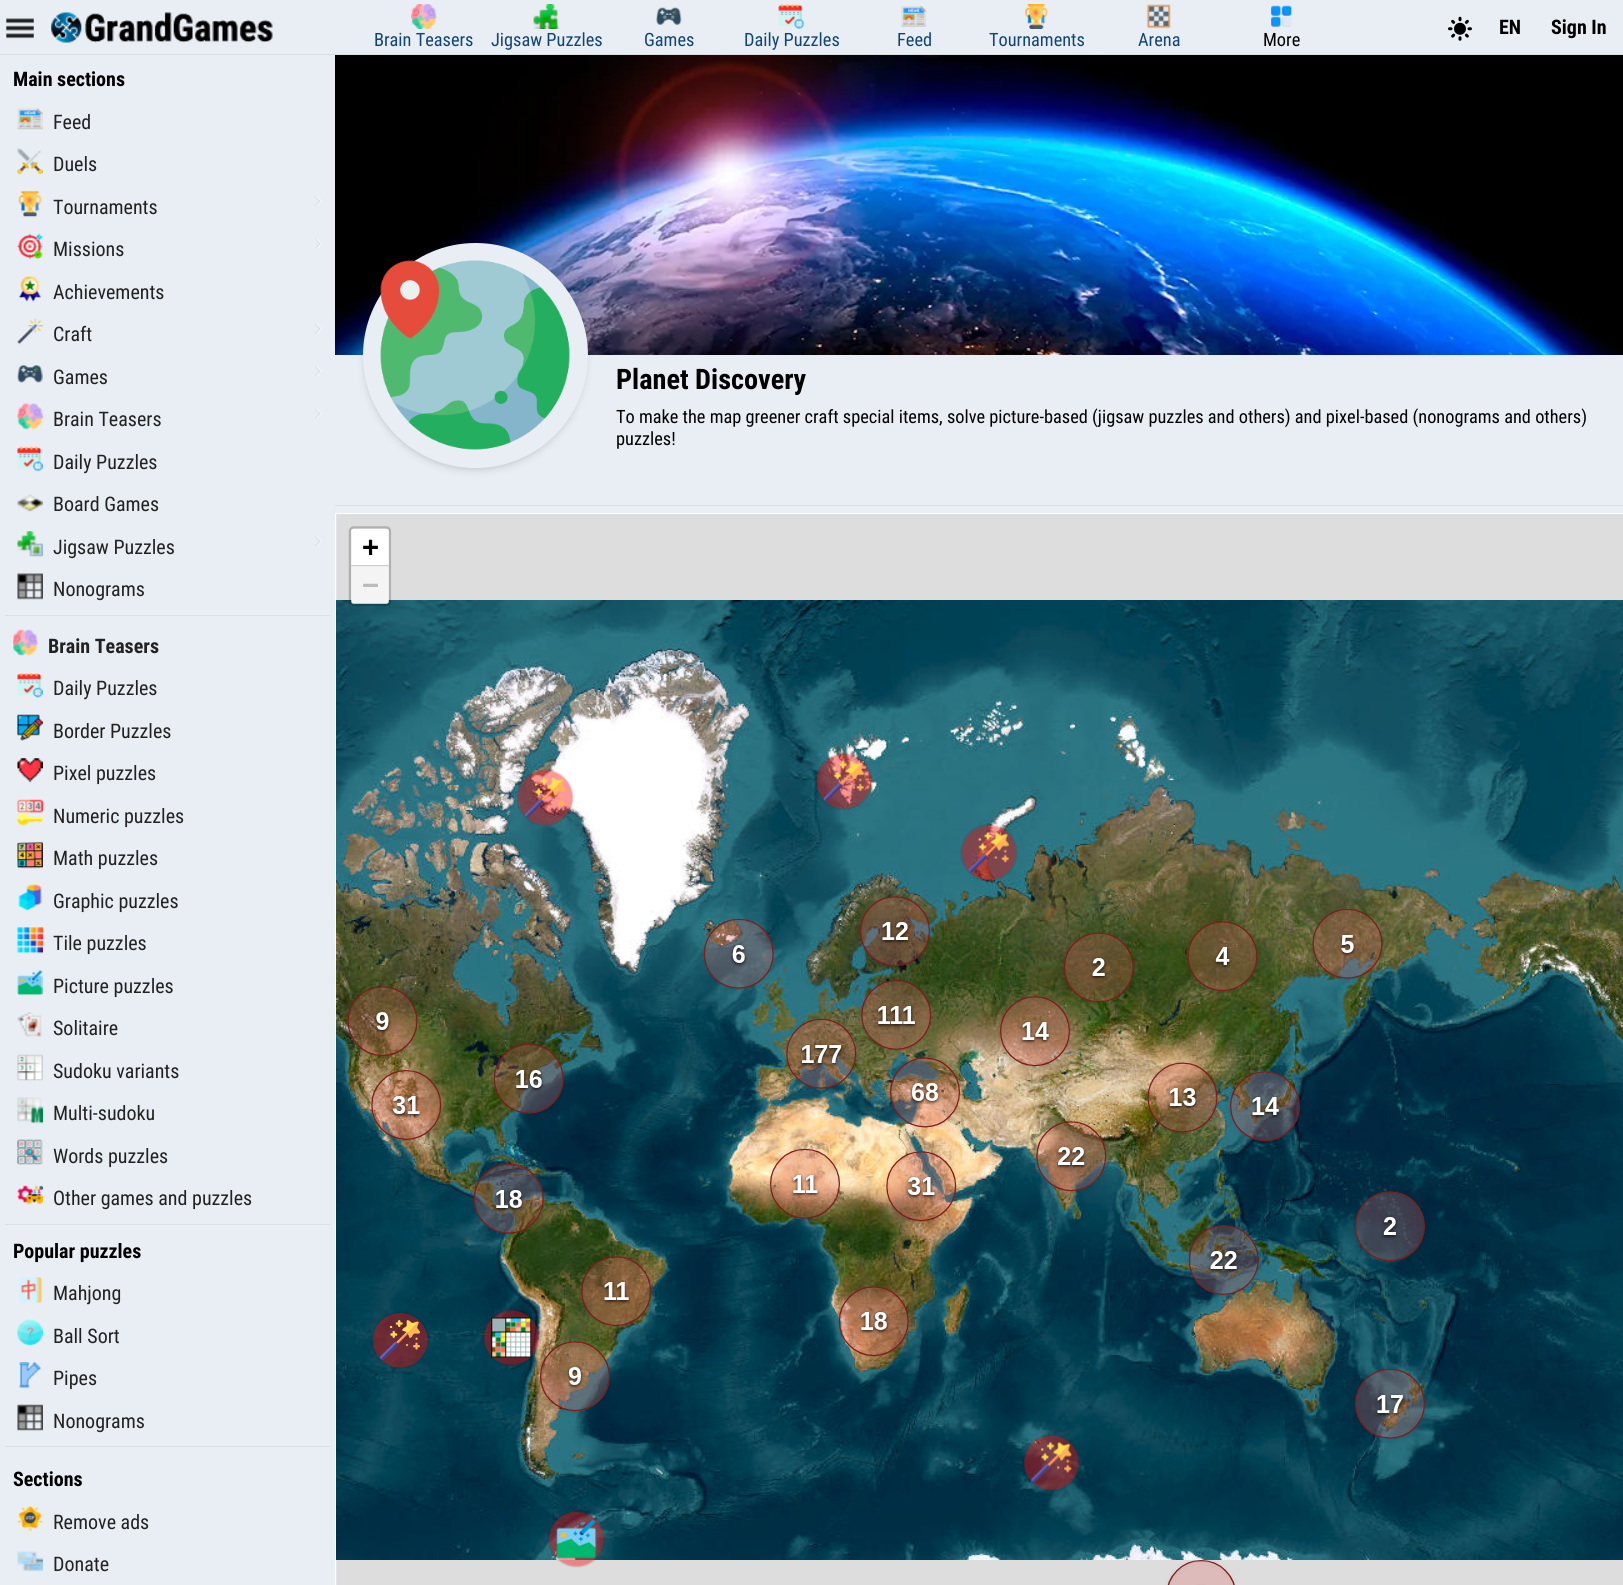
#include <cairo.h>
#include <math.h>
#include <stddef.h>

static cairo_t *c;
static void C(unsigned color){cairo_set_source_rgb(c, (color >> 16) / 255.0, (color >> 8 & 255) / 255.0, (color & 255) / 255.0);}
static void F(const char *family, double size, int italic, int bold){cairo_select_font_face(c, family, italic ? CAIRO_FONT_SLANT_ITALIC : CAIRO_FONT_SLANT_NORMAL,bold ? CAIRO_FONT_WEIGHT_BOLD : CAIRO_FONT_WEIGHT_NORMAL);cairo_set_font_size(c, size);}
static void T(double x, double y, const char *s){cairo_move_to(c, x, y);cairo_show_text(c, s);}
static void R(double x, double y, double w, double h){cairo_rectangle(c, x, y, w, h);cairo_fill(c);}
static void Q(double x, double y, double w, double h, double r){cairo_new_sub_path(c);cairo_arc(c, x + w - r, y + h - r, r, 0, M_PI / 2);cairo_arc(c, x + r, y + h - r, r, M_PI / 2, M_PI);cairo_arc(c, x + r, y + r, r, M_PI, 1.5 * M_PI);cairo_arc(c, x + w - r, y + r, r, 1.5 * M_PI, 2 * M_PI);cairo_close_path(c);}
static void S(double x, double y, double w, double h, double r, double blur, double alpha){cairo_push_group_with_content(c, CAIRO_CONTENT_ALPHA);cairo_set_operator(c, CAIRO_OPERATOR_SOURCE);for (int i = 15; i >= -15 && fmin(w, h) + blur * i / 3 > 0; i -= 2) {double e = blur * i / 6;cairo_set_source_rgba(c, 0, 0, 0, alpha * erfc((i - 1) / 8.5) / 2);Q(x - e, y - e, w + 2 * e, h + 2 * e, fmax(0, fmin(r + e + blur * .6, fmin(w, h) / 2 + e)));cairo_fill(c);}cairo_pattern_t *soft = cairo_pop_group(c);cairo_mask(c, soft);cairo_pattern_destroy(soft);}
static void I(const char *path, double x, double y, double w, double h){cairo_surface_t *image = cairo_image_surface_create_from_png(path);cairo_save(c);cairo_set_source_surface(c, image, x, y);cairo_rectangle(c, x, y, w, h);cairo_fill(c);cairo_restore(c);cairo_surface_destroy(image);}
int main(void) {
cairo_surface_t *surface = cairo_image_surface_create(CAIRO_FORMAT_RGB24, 1623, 1585);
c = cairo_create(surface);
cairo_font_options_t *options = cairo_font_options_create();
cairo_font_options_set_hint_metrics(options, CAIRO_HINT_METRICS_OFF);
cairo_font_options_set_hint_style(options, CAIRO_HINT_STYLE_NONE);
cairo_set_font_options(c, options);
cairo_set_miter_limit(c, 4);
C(0xe8eef3);
cairo_paint(c);
C(0xdddddd);
R(0,54,1623,1);
I("1.png",6,18,28,21);
I("2.png",51,12,222,31);
I("3.png",1448,16,24,25);
F("Roboto Condensed",20,0,1);
C(0x000000);
T(1499,34,"EN");
T(1551,34,"Sign In");
I("4.png",411,4,26,25);
F("Roboto Condensed",18.33,0,0);
C(0x114477);
T(374,46,"Brain Teasers");
I("5.png",533,4,27,25);
T(491,46,"Jigsaw Puzzles");
I("6.png",656,7,26,18);
T(644,46,"Games");
I("7.png",778,4,27,25);
T(744,46,"Daily Puzzles");
I("8.png",901,5,26,22);
T(897,46,"Feed");
I("9.png",1024,4,24,25);
T(989,46,"Tournaments");
I("10.png",1146,4,25,25);
T(1138,46,"Arena");
I("11.png",1271,5,21,22);
C(0x000000);
T(1263,46,"More");
F("Roboto Condensed",20,0,1);
T(13,86,"Main sections");
I("12.png",17,108,26,22);
F("Roboto Condensed",20,0,0);
C(0x222222);
T(53,129,"Feed");
I("13.png",17,148,26,27);
T(53,171,"Duels");
I("14.png",18,191,24,26);
T(53,214,"Tournaments");
I("15.png",315,196,7,10);
I("16.png",17,233,26,27);
T(53,256,"Missions");
I("17.png",315,238,7,11);
I("18.png",19,276,22,26);
T(53,299,"Achievements");
I("19.png",17,318,26,27);
T(53,341,"Craft");
I("17.png",315,323,7,11);
I("20.png",17,365,26,18);
T(53,384,"Games");
I("15.png",315,366,7,10);
I("21.png",17,403,26,27);
T(53,426,"Brain Teasers");
I("17.png",315,408,7,11);
I("22.png",17,446,26,26);
T(53,469,"Daily Puzzles");
I("23.png",17,494,26,18);
T(53,511,"Board Games");
I("24.png",17,531,26,26);
T(53,554,"Jigsaw Puzzles");
I("15.png",315,536,7,10);
I("25.png",17,573,26,27);
T(53,596,"Nonograms");
C(0xd9e0e2);
R(5,615,325,1);
I("26.png",13,629,25,27);
F("Roboto Condensed",20,0,1);
C(0x222222);
T(48,653,"Brain Teasers");
I("27.png",17,673,26,25);
F("Roboto Condensed",20,0,0);
T(53,695,"Daily Puzzles");
I("28.png",17,714,26,27);
T(53,738,"Border Puzzles");
I("29.png",17,758,26,25);
T(53,780,"Pixel puzzles");
I("30.png",17,799,26,27);
T(53,823,"Numeric puzzles");
I("31.png",17,842,26,27);
T(53,865,"Math puzzles");
I("32.png",18,884,24,27);
T(53,908,"Graphic puzzles");
I("33.png",17,927,26,27);
T(53,950,"Tile puzzles");
I("34.png",17,970,26,26);
T(53,993,"Picture puzzles");
I("35.png",17,1012,25,25);
T(53,1035,"Solitaire");
I("36.png",17,1054,26,27);
T(53,1078,"Sudoku variants");
I("37.png",17,1097,26,27);
T(53,1120,"Multi-sudoku");
I("38.png",17,1139,26,26);
T(53,1163,"Words puzzles");
I("39.png",17,1185,26,20);
T(53,1205,"Other games and puzzles");
C(0xd9e0e2);
R(5,1224,325,1);
F("Roboto Condensed",20,0,1);
C(0x000000);
T(13,1258,"Popular puzzles");
I("40.png",18,1277,25,27);
F("Roboto Condensed",20,0,0);
C(0x222222);
T(53,1300,"Mahjong");
I("41.png",17,1319,26,27);
T(53,1343,"Ball Sort");
I("42.png",19,1362,22,27);
T(53,1385,"Pipes");
I("43.png",17,1404,26,27);
T(53,1428,"Nonograms");
C(0xd9e0e2);
R(5,1446,325,1);
F("Roboto Condensed",20,0,1);
C(0x000000);
T(13,1486,"Sections");
I("44.png",17,1506,26,26);
F("Roboto Condensed",20,0,0);
C(0x222222);
T(53,1529,"Remove ads");
I("45.png",17,1551,26,21);
T(53,1571,"Donate");
C(0xdddddd);
R(335,505,1288,1);
I("46.png",335,55,1288,300);
C(0x000000);
S(364,246,222,223,111,2.5,.06);
S(364,249,222,222,111,4,.1);
C(0xe8eef3);
cairo_arc(c,475.5,355.5,112.5,0,2 * M_PI);
cairo_fill(c);
I("47.png",380,260,190,190);
F("Roboto Condensed",28.25,0,1);
C(0x000000);
T(616,389,"Planet Discovery");
F("Roboto Condensed",18.33,0,0);
T(616,423,"To make the map greener craft special items, solve picture-based (jigsaw puzzles and others) and pixel-based (nonograms and others)");
T(616,445,"puzzles!");
cairo_rectangle(c,335.5,513.5,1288,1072);
C(0xffffff);
cairo_set_line_width(c,1);
cairo_stroke(c);
I("48.png",336,514,1287,1071);
cairo_surface_write_to_png(surface, "o.png");
cairo_font_options_destroy(options);
cairo_destroy(c);
cairo_surface_destroy(surface);
return 0;
}
